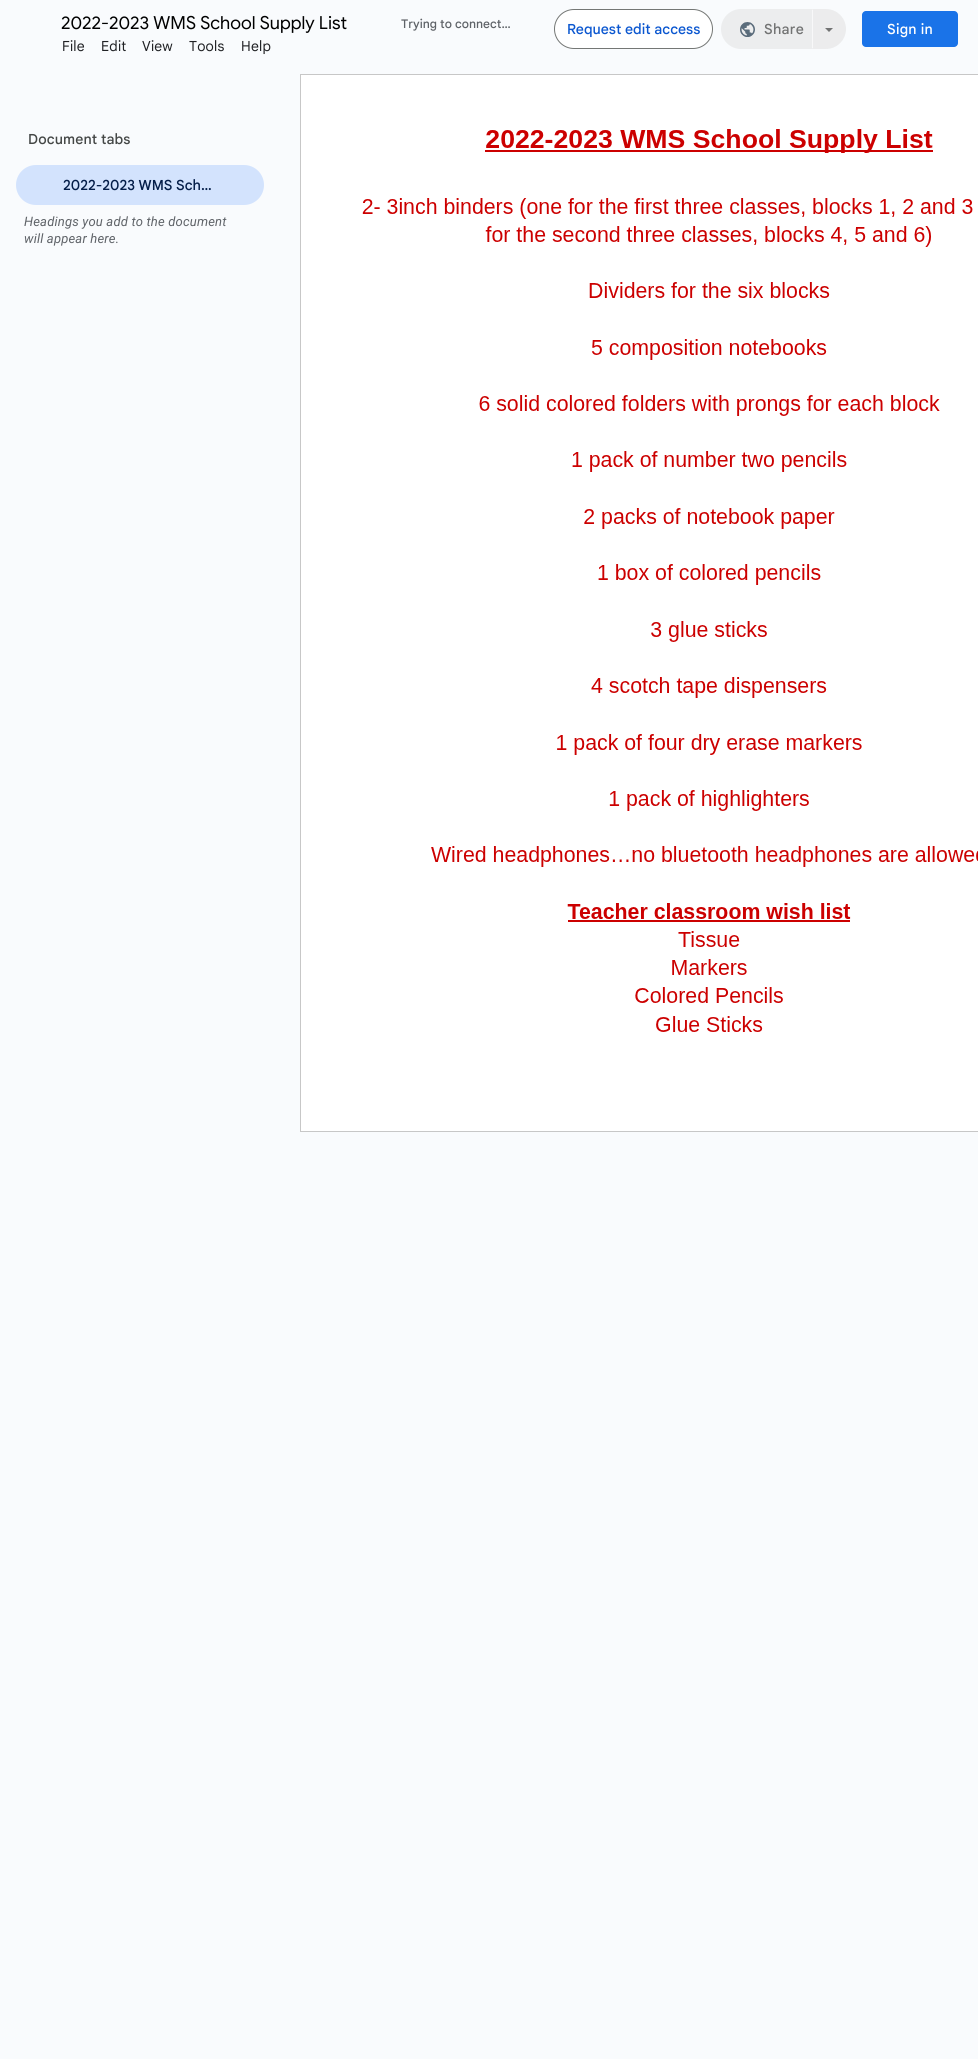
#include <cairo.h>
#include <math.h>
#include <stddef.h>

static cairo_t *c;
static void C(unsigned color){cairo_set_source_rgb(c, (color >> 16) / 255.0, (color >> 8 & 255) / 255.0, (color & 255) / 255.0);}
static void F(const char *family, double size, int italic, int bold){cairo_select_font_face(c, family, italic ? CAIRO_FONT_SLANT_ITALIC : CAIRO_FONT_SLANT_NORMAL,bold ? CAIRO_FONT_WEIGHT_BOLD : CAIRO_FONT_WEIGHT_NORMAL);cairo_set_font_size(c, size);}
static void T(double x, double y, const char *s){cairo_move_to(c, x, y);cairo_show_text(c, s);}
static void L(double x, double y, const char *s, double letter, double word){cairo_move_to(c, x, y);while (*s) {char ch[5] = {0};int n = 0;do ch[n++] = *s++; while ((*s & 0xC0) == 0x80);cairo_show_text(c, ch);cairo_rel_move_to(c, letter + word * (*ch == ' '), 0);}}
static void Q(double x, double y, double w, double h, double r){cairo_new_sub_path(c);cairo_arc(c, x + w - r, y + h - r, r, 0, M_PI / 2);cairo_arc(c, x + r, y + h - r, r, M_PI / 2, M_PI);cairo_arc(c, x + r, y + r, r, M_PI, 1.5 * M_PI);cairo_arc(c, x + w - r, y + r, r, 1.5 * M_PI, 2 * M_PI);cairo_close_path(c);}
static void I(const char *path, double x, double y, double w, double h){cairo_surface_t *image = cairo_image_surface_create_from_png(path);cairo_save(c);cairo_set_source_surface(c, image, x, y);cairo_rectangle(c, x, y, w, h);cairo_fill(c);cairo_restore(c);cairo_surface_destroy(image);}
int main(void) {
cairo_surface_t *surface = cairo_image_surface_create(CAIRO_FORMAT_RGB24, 978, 2059);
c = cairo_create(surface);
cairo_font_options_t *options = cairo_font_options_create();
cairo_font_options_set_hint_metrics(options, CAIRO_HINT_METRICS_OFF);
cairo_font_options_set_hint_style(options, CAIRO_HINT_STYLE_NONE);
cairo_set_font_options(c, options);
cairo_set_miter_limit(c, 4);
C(0xf9fbfd);
cairo_paint(c);
F("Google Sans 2",18,0,0);
C(0x000000);
T(61,29,"2022-2023 WMS School Supply List");
F("Google Sans Medium",12,0,0);
C(0x5f6368);
T(401,28,"Trying to connect…");
C(0xffffff);
Q(554.5,9.5,158,39,19.5);
cairo_fill_preserve(c);
C(0x747775);
cairo_set_line_width(c,1);
cairo_stroke(c);
F("Google Sans Medium",14,0,0);
C(0x0b57d0);
T(567,34,"Request edit access");
C(0xecedee);
cairo_new_path(c);
cairo_move_to(c,741,9);
cairo_line_to(c,813,9);
cairo_line_to(c,813,49);
cairo_line_to(c,741,49);
cairo_curve_to(c,730,49,721,40,721,29);
cairo_curve_to(c,721,18,730,9,741,9);
cairo_close_path(c);
cairo_fill(c);
I("1.png",740,22,15,15);
C(0x727373);
L(764,34,"Share",.25,0);
cairo_set_source_rgba(c,0.894,0.894,0.894,0.62);
cairo_new_path(c);
cairo_move_to(c,812,9);
cairo_line_to(c,826,9);
cairo_curve_to(c,837,9,846,18,846,29);
cairo_curve_to(c,846,40,837,49,826,49);
cairo_line_to(c,812,49);
cairo_close_path(c);
cairo_fill(c);
C(0xf8f8f9);
cairo_new_path(c);
cairo_move_to(c,813,10);
cairo_line_to(c,812,9);
cairo_line_to(c,812,49);
cairo_line_to(c,813,48);
cairo_close_path(c);
cairo_fill(c);
C(0x727373);
cairo_new_path(c);
cairo_move_to(c,825,28);
cairo_line_to(c,833,28);
cairo_line_to(c,829,32);
cairo_close_path(c);
cairo_fill(c);
C(0x1a73e8);
Q(862,11,96,36,4);
cairo_fill(c);
C(0xffffff);
L(887,34,"Sign in",.25,0);
F("Google Sans",14,0,0);
C(0x202124);
L(62,51,"File",.2,0);
L(101,51,"Edit",.2,0);
L(142,51,"View",.2,0);
L(189,51,"Tools",.2,0);
L(241,51,"Help",.2,0);
F("Google Sans Medium",14,0,0);
C(0x444746);
L(28,144,"Document tabs",.1,0);
C(0xd3e3fd);
Q(16,165,248,40,20);
cairo_fill(c);
C(0x041e49);
T(63,190,"2022-2023 WMS Sch…");
F("Roboto",13,1,0);
C(0x5f6368);
L(24,226,"Headings you add to the document",.2,0);
L(24,243,"will appear here.",.2,0);
cairo_rectangle(c,300.5,74.5,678,1057);
C(0xc7c7c7);
cairo_stroke(c);
I("2.png",301,75,677,1056);
cairo_surface_write_to_png(surface, "o.png");
cairo_font_options_destroy(options);
cairo_destroy(c);
cairo_surface_destroy(surface);
return 0;
}
